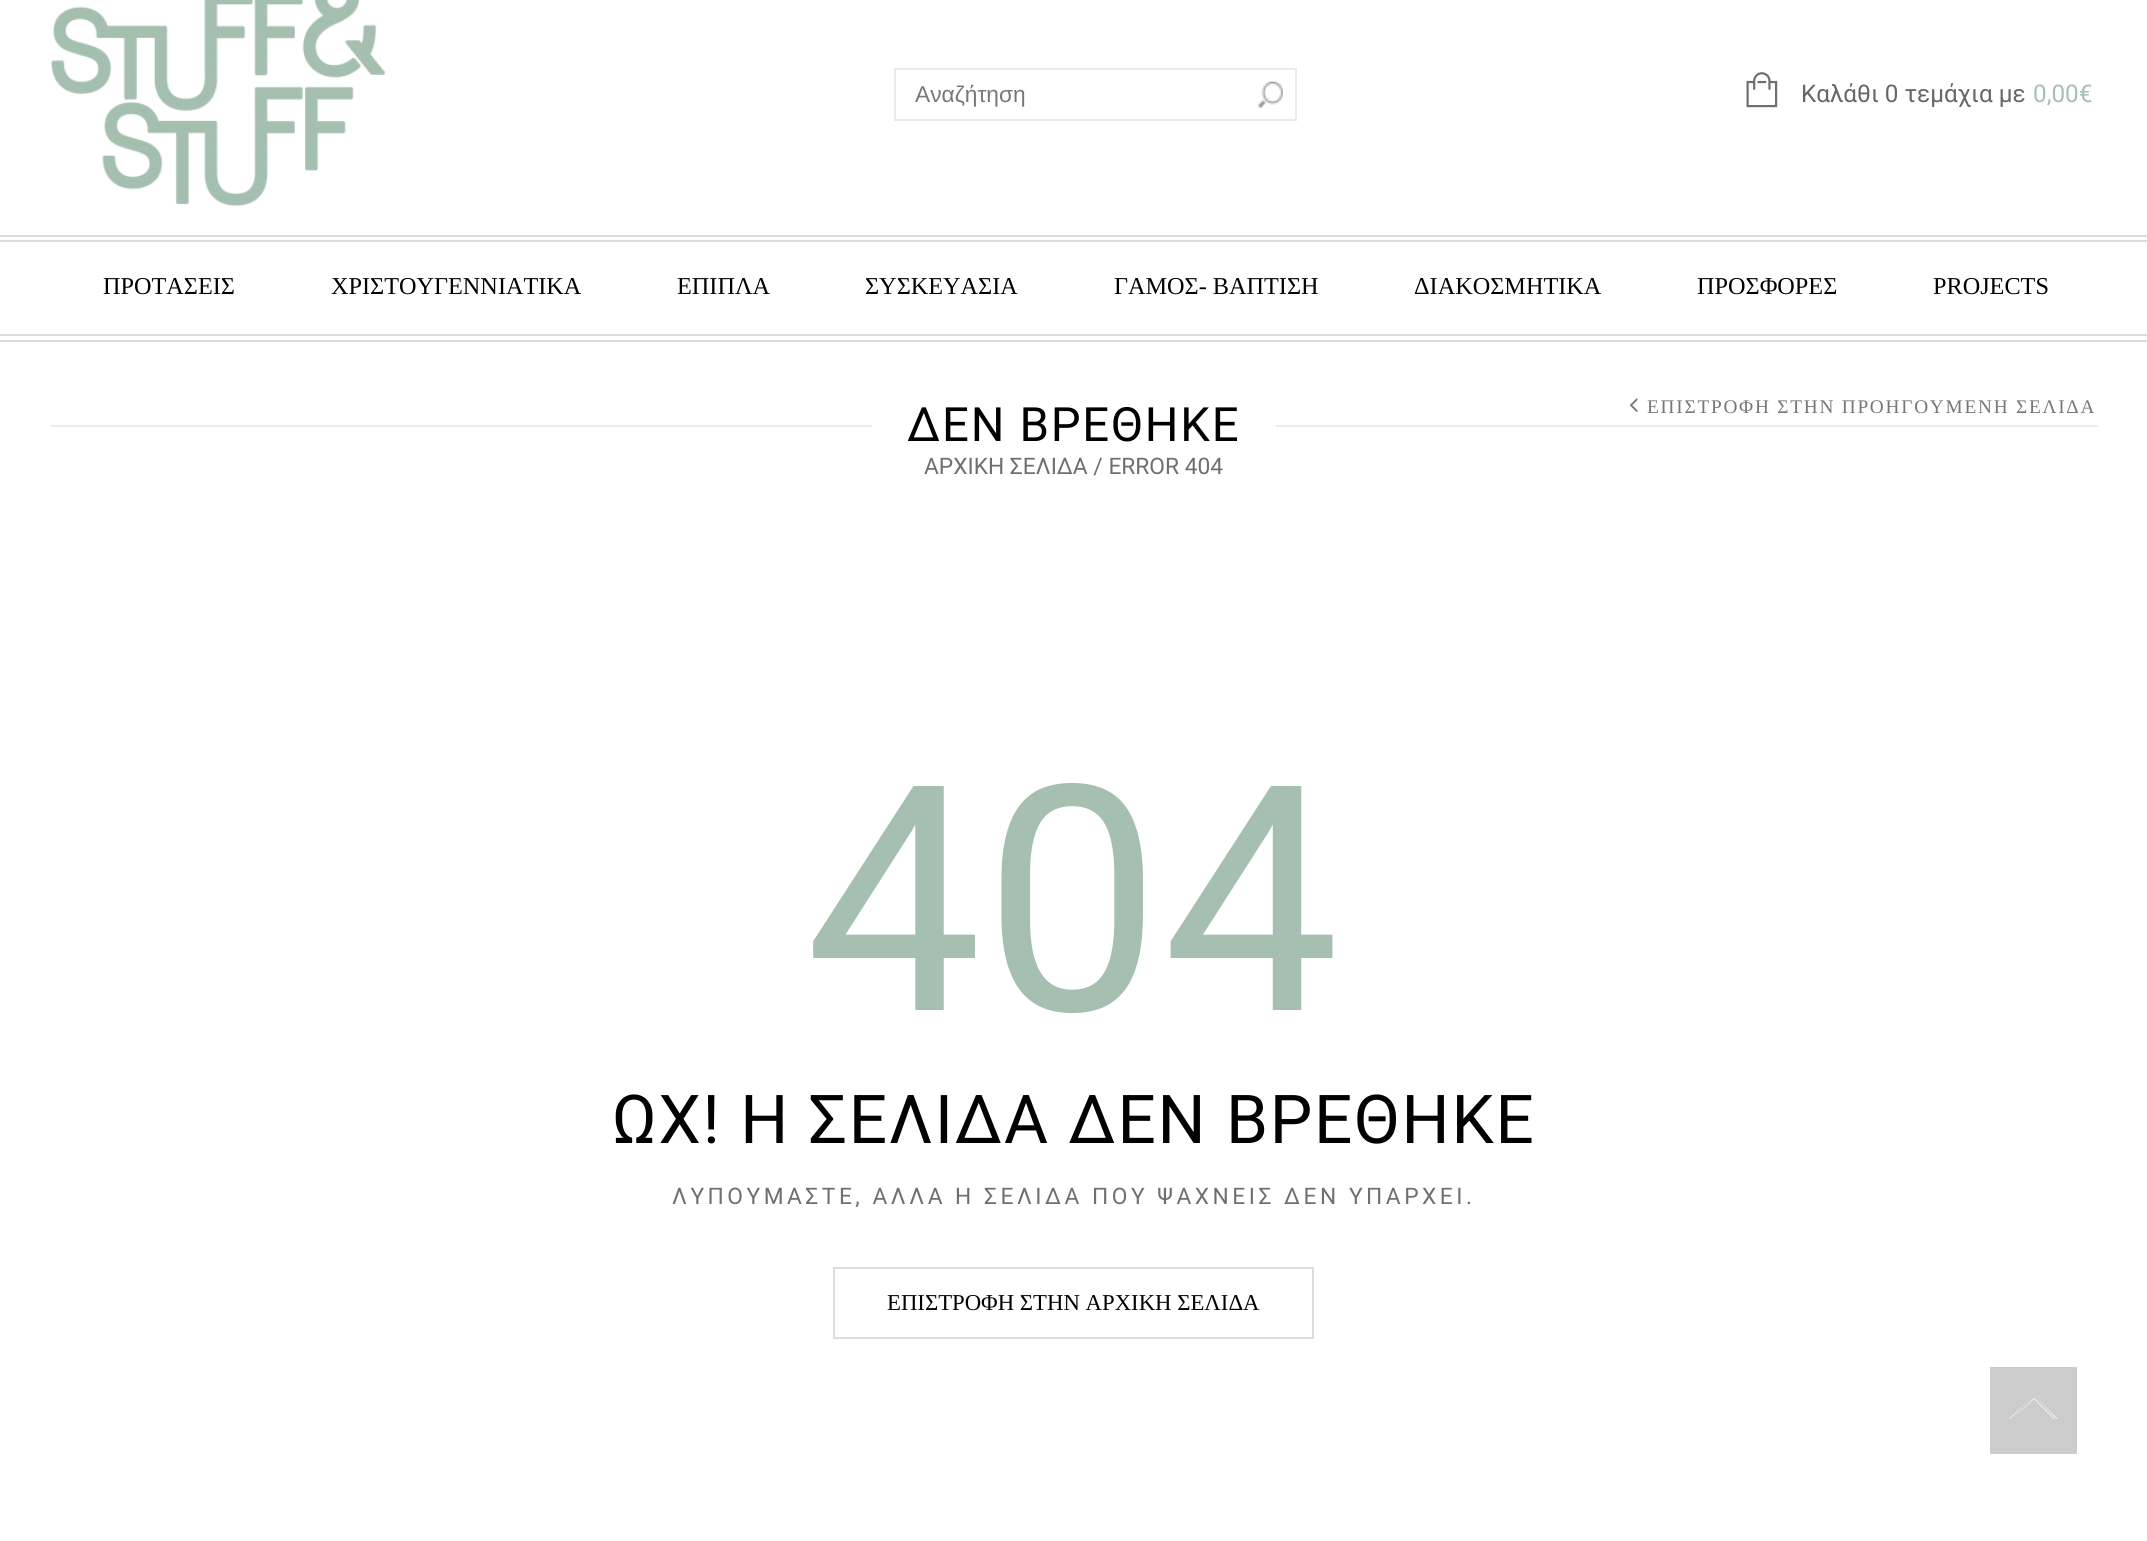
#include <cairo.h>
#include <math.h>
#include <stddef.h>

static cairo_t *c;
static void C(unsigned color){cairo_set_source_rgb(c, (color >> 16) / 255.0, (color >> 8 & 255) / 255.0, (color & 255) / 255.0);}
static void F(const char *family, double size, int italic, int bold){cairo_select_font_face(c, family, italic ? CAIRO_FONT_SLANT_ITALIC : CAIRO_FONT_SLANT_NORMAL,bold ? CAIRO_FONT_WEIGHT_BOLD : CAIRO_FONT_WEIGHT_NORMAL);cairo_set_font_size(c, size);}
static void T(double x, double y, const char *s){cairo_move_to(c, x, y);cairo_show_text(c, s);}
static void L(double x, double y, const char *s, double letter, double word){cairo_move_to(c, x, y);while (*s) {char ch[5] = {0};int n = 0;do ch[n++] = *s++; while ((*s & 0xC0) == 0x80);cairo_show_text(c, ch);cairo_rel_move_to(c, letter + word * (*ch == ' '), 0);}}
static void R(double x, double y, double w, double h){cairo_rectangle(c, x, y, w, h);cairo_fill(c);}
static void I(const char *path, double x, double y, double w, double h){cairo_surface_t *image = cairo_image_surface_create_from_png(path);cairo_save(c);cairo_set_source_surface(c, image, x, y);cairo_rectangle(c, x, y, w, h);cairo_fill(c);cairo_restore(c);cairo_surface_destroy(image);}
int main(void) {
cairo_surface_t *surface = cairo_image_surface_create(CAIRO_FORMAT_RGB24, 2147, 1541);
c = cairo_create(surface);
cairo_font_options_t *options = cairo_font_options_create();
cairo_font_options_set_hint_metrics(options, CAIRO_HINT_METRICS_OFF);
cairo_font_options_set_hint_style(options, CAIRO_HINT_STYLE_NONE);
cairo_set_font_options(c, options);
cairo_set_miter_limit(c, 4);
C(0xffffff);
cairo_paint(c);
I("1.png",50,0,336,207);
cairo_rectangle(c,895,69,401,51);
C(0xebebeb);
cairo_stroke(c);
F("Liberation Sans",22.75,0,0);
C(0x777777);
T(915,102,"Αναζήτηση");
I("2.png",1258,81,25,27);
I("3.png",1746,72,32,36);
F("Roboto",24.25,0,0);
C(0x676767);
T(1801,102,"Καλάθι 0 τεμάχια με");
C(0xa5c0b0);
T(2033,102,"0,00€");
C(0xdbdbdb);
R(0,235,2147,2);
R(0,340,2147,2);
R(0,240,2147,2);
R(0,334,2147,2);
F("Liberation Serif",24.25,0,0);
C(0x000000);
T(103,294,"ΠΡΟΤΑΣΕΙΣ");
T(331,294,"ΧΡΙΣΤΟΥΓΕΝΝΙΑΤΙΚΑ");
T(677,294,"ΕΠΙΠΛΑ");
T(865,294,"ΣΥΣΚΕΥΑΣΙΑ");
T(1114,294,"ΓΑΜΟΣ- ΒΑΠΤΙΣΗ");
T(1414,294,"ΔΙΑΚΟΣΜΗΤΙΚΑ");
T(1697,294,"ΠΡΟΣΦΟΡΕΣ");
T(1933,294,"PROJECTS");
I("4.png",1629,398,9,14);
F("Liberation Serif",19.3,0,0);
C(0x777777);
L(1647,413,"ΕΠΙΣΤΡΟΦΗ ΣΤΗΝ ΠΡΟΗΓΟΥΜΕΝΗ ΣΕΛΙΔΑ",1.75,0);
F("Roboto",22.75,0,0);
C(0x6f6f6f);
T(924,474,"ΑΡΧΙΚΗ ΣΕΛΙΔΑ / ERROR 404");
C(0xebebeb);
R(51,425,2047,2);
C(0xffffff);
R(872,425,404,2);
F("Roboto",47.25,0,0);
C(0x000000);
L(907,441,"ΔΕΝ ΒΡΕΘΗΚΕ",1.75,0);
F("Roboto",315,0,0);
C(0xa5c0b0);
L(805,1010,"404",1.75,0);
F("Roboto",67.4,0,0);
C(0x000000);
L(612,1143,"ΩΧ! Η ΣΕΛΙΔΑ ΔΕΝ ΒΡΕΘΗΚΕ",1.75,0);
F("Roboto",22.75,0,0);
C(0x6f6f6f);
L(672,1204,"ΛΥΠΟΥΜΑΣΤΕ, ΑΛΛΑ Η ΣΕΛΙΔΑ ΠΟΥ ΨΑΧΝΕΙΣ ΔΕΝ ΥΠΑΡΧΕΙ.",3.5,0);
cairo_rectangle(c,834,1268,479,70);
C(0xdddddd);
cairo_stroke(c);
F("Liberation Serif",22.75,0,0);
C(0x000000);
T(887,1310,"ΕΠΙΣΤΡΟΦΗ ΣΤΗΝ ΑΡΧΙΚΗ ΣΕΛΙΔΑ");
C(0xcccccc);
R(1990,1367,87,87);
C(0xffffff);
cairo_new_path(c);
cairo_move_to(c,2013,1419);
cairo_line_to(c,2034,1399);
cairo_line_to(c,2054,1419);
cairo_line_to(c,2055,1419);
cairo_line_to(c,2034,1398);
cairo_close_path(c);
cairo_move_to(c,2010,1419);
cairo_line_to(c,2034,1395);
cairo_line_to(c,2057,1419);
cairo_line_to(c,2058,1419);
cairo_line_to(c,2034,1395);
cairo_line_to(c,2009,1419);
cairo_close_path(c);
cairo_fill(c);
cairo_surface_write_to_png(surface, "o.png");
cairo_font_options_destroy(options);
cairo_destroy(c);
cairo_surface_destroy(surface);
return 0;
}
